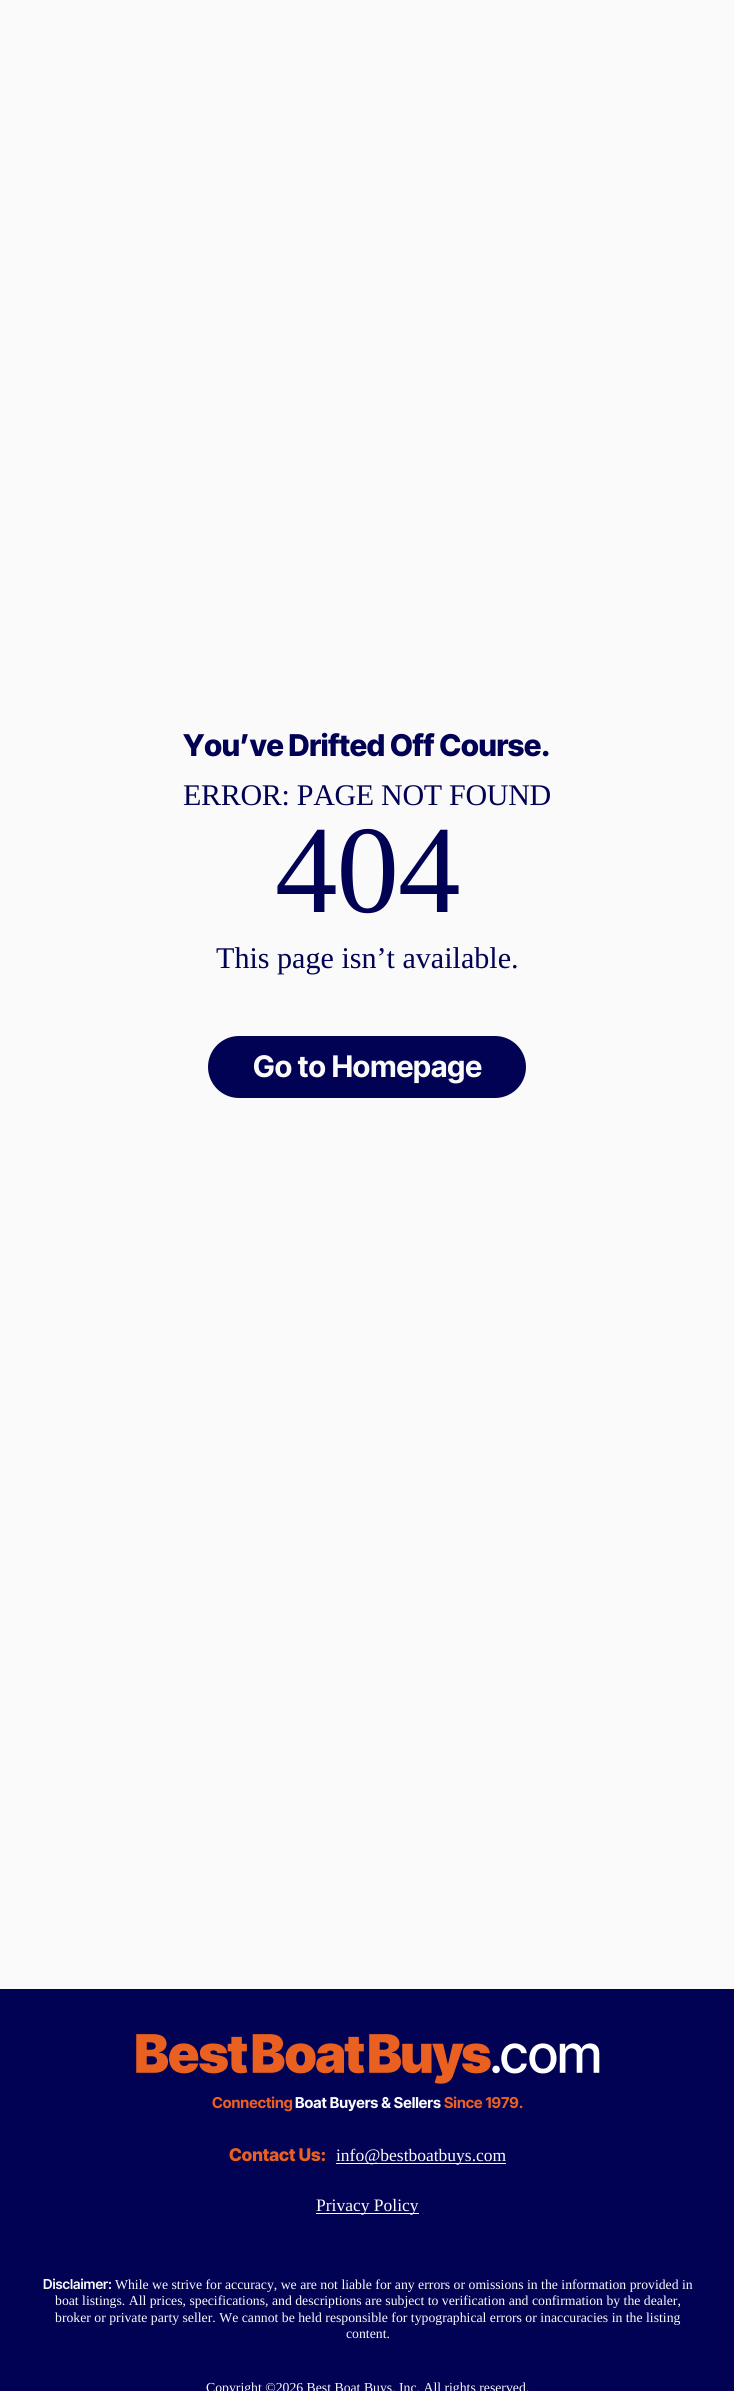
#include <cairo.h>
#include <math.h>
#include <stddef.h>

static cairo_t *c;
static void C(unsigned color){cairo_set_source_rgb(c, (color >> 16) / 255.0, (color >> 8 & 255) / 255.0, (color & 255) / 255.0);}
static void F(const char *family, double size, int italic, int bold){cairo_select_font_face(c, family, italic ? CAIRO_FONT_SLANT_ITALIC : CAIRO_FONT_SLANT_NORMAL,bold ? CAIRO_FONT_WEIGHT_BOLD : CAIRO_FONT_WEIGHT_NORMAL);cairo_set_font_size(c, size);}
static void T(double x, double y, const char *s){cairo_move_to(c, x, y);cairo_show_text(c, s);}
static void L(double x, double y, const char *s, double letter, double word){cairo_move_to(c, x, y);while (*s) {char ch[5] = {0};int n = 0;do ch[n++] = *s++; while ((*s & 0xC0) == 0x80);cairo_show_text(c, ch);cairo_rel_move_to(c, letter + word * (*ch == ' '), 0);}}
static void R(double x, double y, double w, double h){cairo_rectangle(c, x, y, w, h);cairo_fill(c);}
static void Q(double x, double y, double w, double h, double r){cairo_new_sub_path(c);cairo_arc(c, x + w - r, y + h - r, r, 0, M_PI / 2);cairo_arc(c, x + r, y + h - r, r, M_PI / 2, M_PI);cairo_arc(c, x + r, y + r, r, M_PI, 1.5 * M_PI);cairo_arc(c, x + w - r, y + r, r, 1.5 * M_PI, 2 * M_PI);cairo_close_path(c);}
static void I(const char *path, double x, double y, double w, double h){cairo_surface_t *image = cairo_image_surface_create_from_png(path);cairo_save(c);cairo_set_source_surface(c, image, x, y);cairo_rectangle(c, x, y, w, h);cairo_fill(c);cairo_restore(c);cairo_surface_destroy(image);}
int main(void) {
cairo_surface_t *surface = cairo_image_surface_create(CAIRO_FORMAT_RGB24, 734, 2391);
c = cairo_create(surface);
cairo_font_options_t *options = cairo_font_options_create();
cairo_font_options_set_hint_metrics(options, CAIRO_HINT_METRICS_OFF);
cairo_font_options_set_hint_style(options, CAIRO_HINT_STYLE_NONE);
cairo_set_font_options(c, options);
cairo_set_miter_limit(c, 4);
C(0xfafafa);
cairo_paint(c);
F("Inter Tight ExtraBold",30,0,0);
C(0x020255);
L(183,756,"You’ve Drifted Off Course.",-.3,0);
F("Liberation Serif",30,0,0);
L(183,805,"ERROR: PAGE NOT FOUND",-.3,0);
F("Liberation Serif",125,0,0);
L(275,912,"404",-1,0);
F("Liberation Serif",30.1,0,0);
T(216,968,"This page isn’t available.");
Q(208,1036,318,62,31);
cairo_fill(c);
F("Inter Tight",29.75,0,1);
C(0xfafafa);
T(253,1077,"Go to Homepage");
C(0x020255);
R(0,1989,734,402);
I("1.png",136,2034,464,50);
F("Inter Tight",15,0,1);
C(0xea6020);
T(212,2108,"Connecting");
C(0xfafafa);
T(295,2108,"Boat Buyers & Sellers");
C(0xea6020);
T(444,2108,"Since 1979.");
F("Inter Tight ExtraBold",17.5,0,0);
T(229,2161,"Contact Us:");
C(0xfafafa);
R(336,2163,170,1);
F("Liberation Serif",17.5,0,0);
T(336,2161,"info@bestboatbuys.com");
R(316,2213,103,1);
T(316,2211,"Privacy Policy");
F("Inter Tight SemiBold",13.75,0,0);
T(43,2289,"Disclaimer:");
F("Liberation Serif",13.75,0,0);
T(115,2289,"While we strive for accuracy, we are not liable for any errors or omissions in the information provided in");
T(55,2305,"boat listings. All prices, specifications, and descriptions are subject to verification and confirmation by the dealer,");
T(55,2322,"broker or private party seller. We cannot be held responsible for typographical errors or inaccuracies in the listing");
T(346,2338,"content.");
T(206,2392,"Copyright ©2026 Best Boat Buys, Inc. All rights reserved.");
cairo_surface_write_to_png(surface, "o.png");
cairo_font_options_destroy(options);
cairo_destroy(c);
cairo_surface_destroy(surface);
return 0;
}
